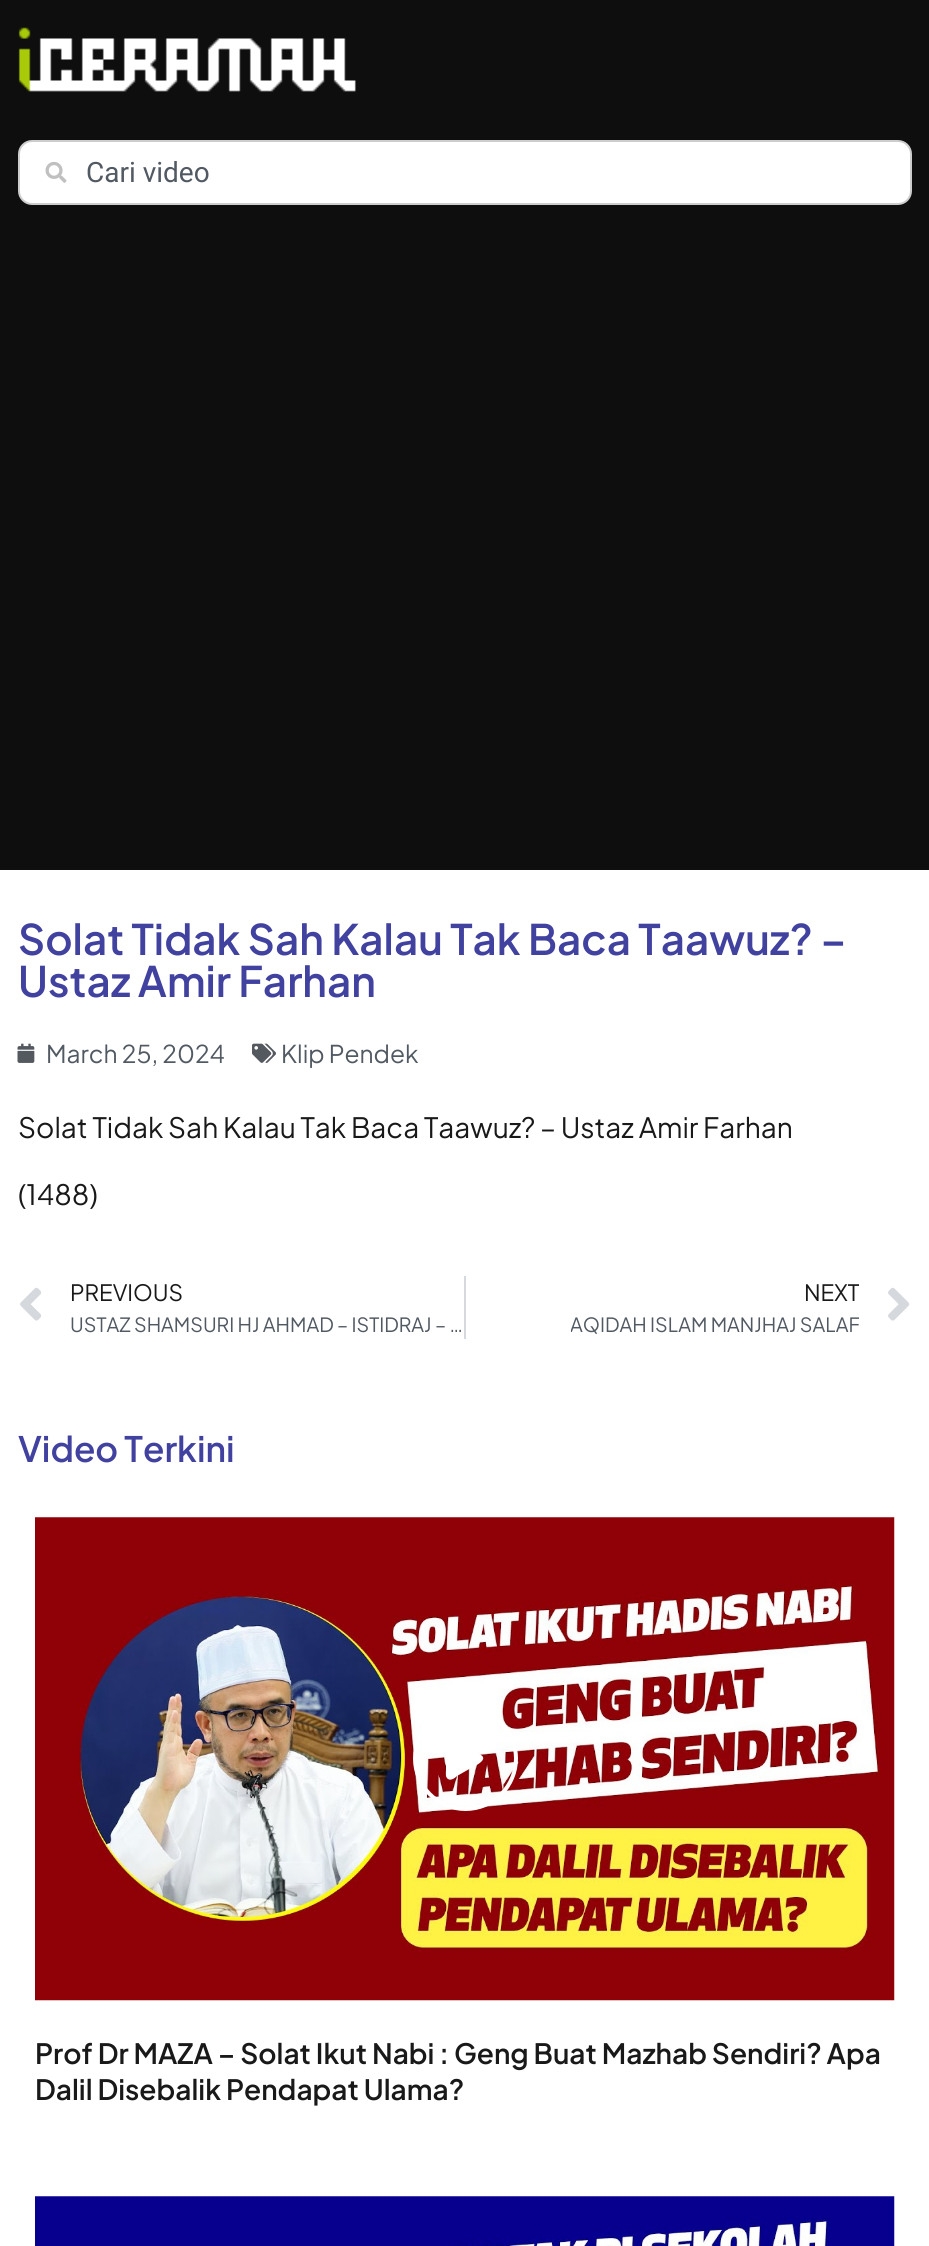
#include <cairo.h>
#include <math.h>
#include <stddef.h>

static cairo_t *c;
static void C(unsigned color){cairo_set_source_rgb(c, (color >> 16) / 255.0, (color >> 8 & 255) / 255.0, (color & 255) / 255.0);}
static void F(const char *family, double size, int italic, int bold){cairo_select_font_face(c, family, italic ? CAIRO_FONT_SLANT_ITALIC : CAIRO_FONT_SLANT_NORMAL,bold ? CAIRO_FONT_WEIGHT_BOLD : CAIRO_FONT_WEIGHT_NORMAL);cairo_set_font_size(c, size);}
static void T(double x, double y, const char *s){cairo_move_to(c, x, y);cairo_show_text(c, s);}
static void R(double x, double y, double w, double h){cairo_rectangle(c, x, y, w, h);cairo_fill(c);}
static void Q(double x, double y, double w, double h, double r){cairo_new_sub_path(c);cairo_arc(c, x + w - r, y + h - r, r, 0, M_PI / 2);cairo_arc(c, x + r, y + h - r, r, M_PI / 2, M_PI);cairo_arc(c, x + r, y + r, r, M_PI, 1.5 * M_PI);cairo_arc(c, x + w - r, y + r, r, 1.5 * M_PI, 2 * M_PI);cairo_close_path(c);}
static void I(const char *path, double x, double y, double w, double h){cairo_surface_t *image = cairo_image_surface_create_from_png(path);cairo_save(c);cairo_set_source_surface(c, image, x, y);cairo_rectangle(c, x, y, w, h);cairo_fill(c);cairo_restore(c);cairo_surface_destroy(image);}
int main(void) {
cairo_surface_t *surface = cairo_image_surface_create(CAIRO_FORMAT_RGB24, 929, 2246);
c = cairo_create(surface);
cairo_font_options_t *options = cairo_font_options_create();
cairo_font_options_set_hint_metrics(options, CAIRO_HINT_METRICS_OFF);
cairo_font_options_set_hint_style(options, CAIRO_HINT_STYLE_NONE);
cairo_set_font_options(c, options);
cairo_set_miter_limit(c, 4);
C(0xffffff);
cairo_paint(c);
C(0x0e0e0e);
R(0,0,929,870);
I("1.png",18,27,338,65);
C(0xffffff);
Q(19,141,892,63,13);
cairo_fill_preserve(c);
C(0xcdcdcd);
cairo_stroke(c);
I("2.png",45,161,22,22);
F("Roboto",28,0,0);
C(0x515962);
T(86,182,"Cari video");
F("Plus Jakarta Sans SemiBold",42,0,0);
C(0x4141a0);
T(18,955,"Solat Tidak Sah Kalau Tak Baca Taawuz? –");
T(18,997,"Ustaz Amir Farhan");
I("3.png",17,1043,18,20);
F("Plus Jakarta Sans",24.5,0,0);
C(0x515962);
T(46,1063,"March 25, 2024");
I("4.png",252,1043,24,20);
T(281,1063,"Klip Pendek");
F("Plus Jakarta Sans",28,0,0);
C(0x191919);
T(18,1138,"Solat Tidak Sah Kalau Tak Baca Taawuz? – Ustaz Amir Farhan");
T(18,1205,"(1488)");
I("5.png",20,1287,22,34);
F("Plus Jakarta Sans",22.5,0,0);
T(70,1301,"PREVIOUS");
F("Plus Jakarta Sans",19.6,0,0);
C(0x515962);
T(70,1332,"USTAZ SHAMSURI HJ AHMAD – ISTIDRAJ – …");
C(0xd5d8dc);
R(464,1276,2,63);
F("Plus Jakarta Sans",22.5,0,0);
C(0x191919);
T(804,1301,"NEXT");
cairo_save(c);
cairo_rectangle(c,571,1309,288,30);
cairo_clip(c);
F("Plus Jakarta Sans",19.6,0,0);
C(0x515962);
T(570,1332,"AQIDAH ISLAM MANJHAJ SALAF");
cairo_restore(c);
I("6.png",888,1287,22,34);
F("Plus Jakarta Sans SemiBold",35,0,0);
C(0x4141a0);
T(18,1462,"Video Terkini");
I("7.png",35,1517,860,484);
cairo_arc(c,465.5,1758.5,50.5,0,2 * M_PI);
C(0xffffff);
cairo_set_line_width(c,4);
cairo_stroke(c);
cairo_new_path(c);
cairo_move_to(c,481,1755);
cairo_curve_to(c,489,1760,473,1767,471,1768);
cairo_line_to(c,457,1776);
cairo_curve_to(c,455,1778,451,1781,448,1779);
cairo_curve_to(c,445,1777,446,1773,446,1770);
cairo_line_to(c,446,1747);
cairo_curve_to(c,446,1736,448,1736,457,1741);
cairo_close_path(c);
cairo_fill(c);
F("Plus Jakarta Sans SemiBold",28,0,0);
C(0x191919);
T(35,2064,"Prof Dr MAZA – Solat Ikut Nabi : Geng Buat Mazhab Sendiri? Apa");
T(35,2100,"Dalil Disebalik Pendapat Ulama?");
I("8.png",35,2196,860,50);
cairo_surface_write_to_png(surface, "o.png");
cairo_font_options_destroy(options);
cairo_destroy(c);
cairo_surface_destroy(surface);
return 0;
}
